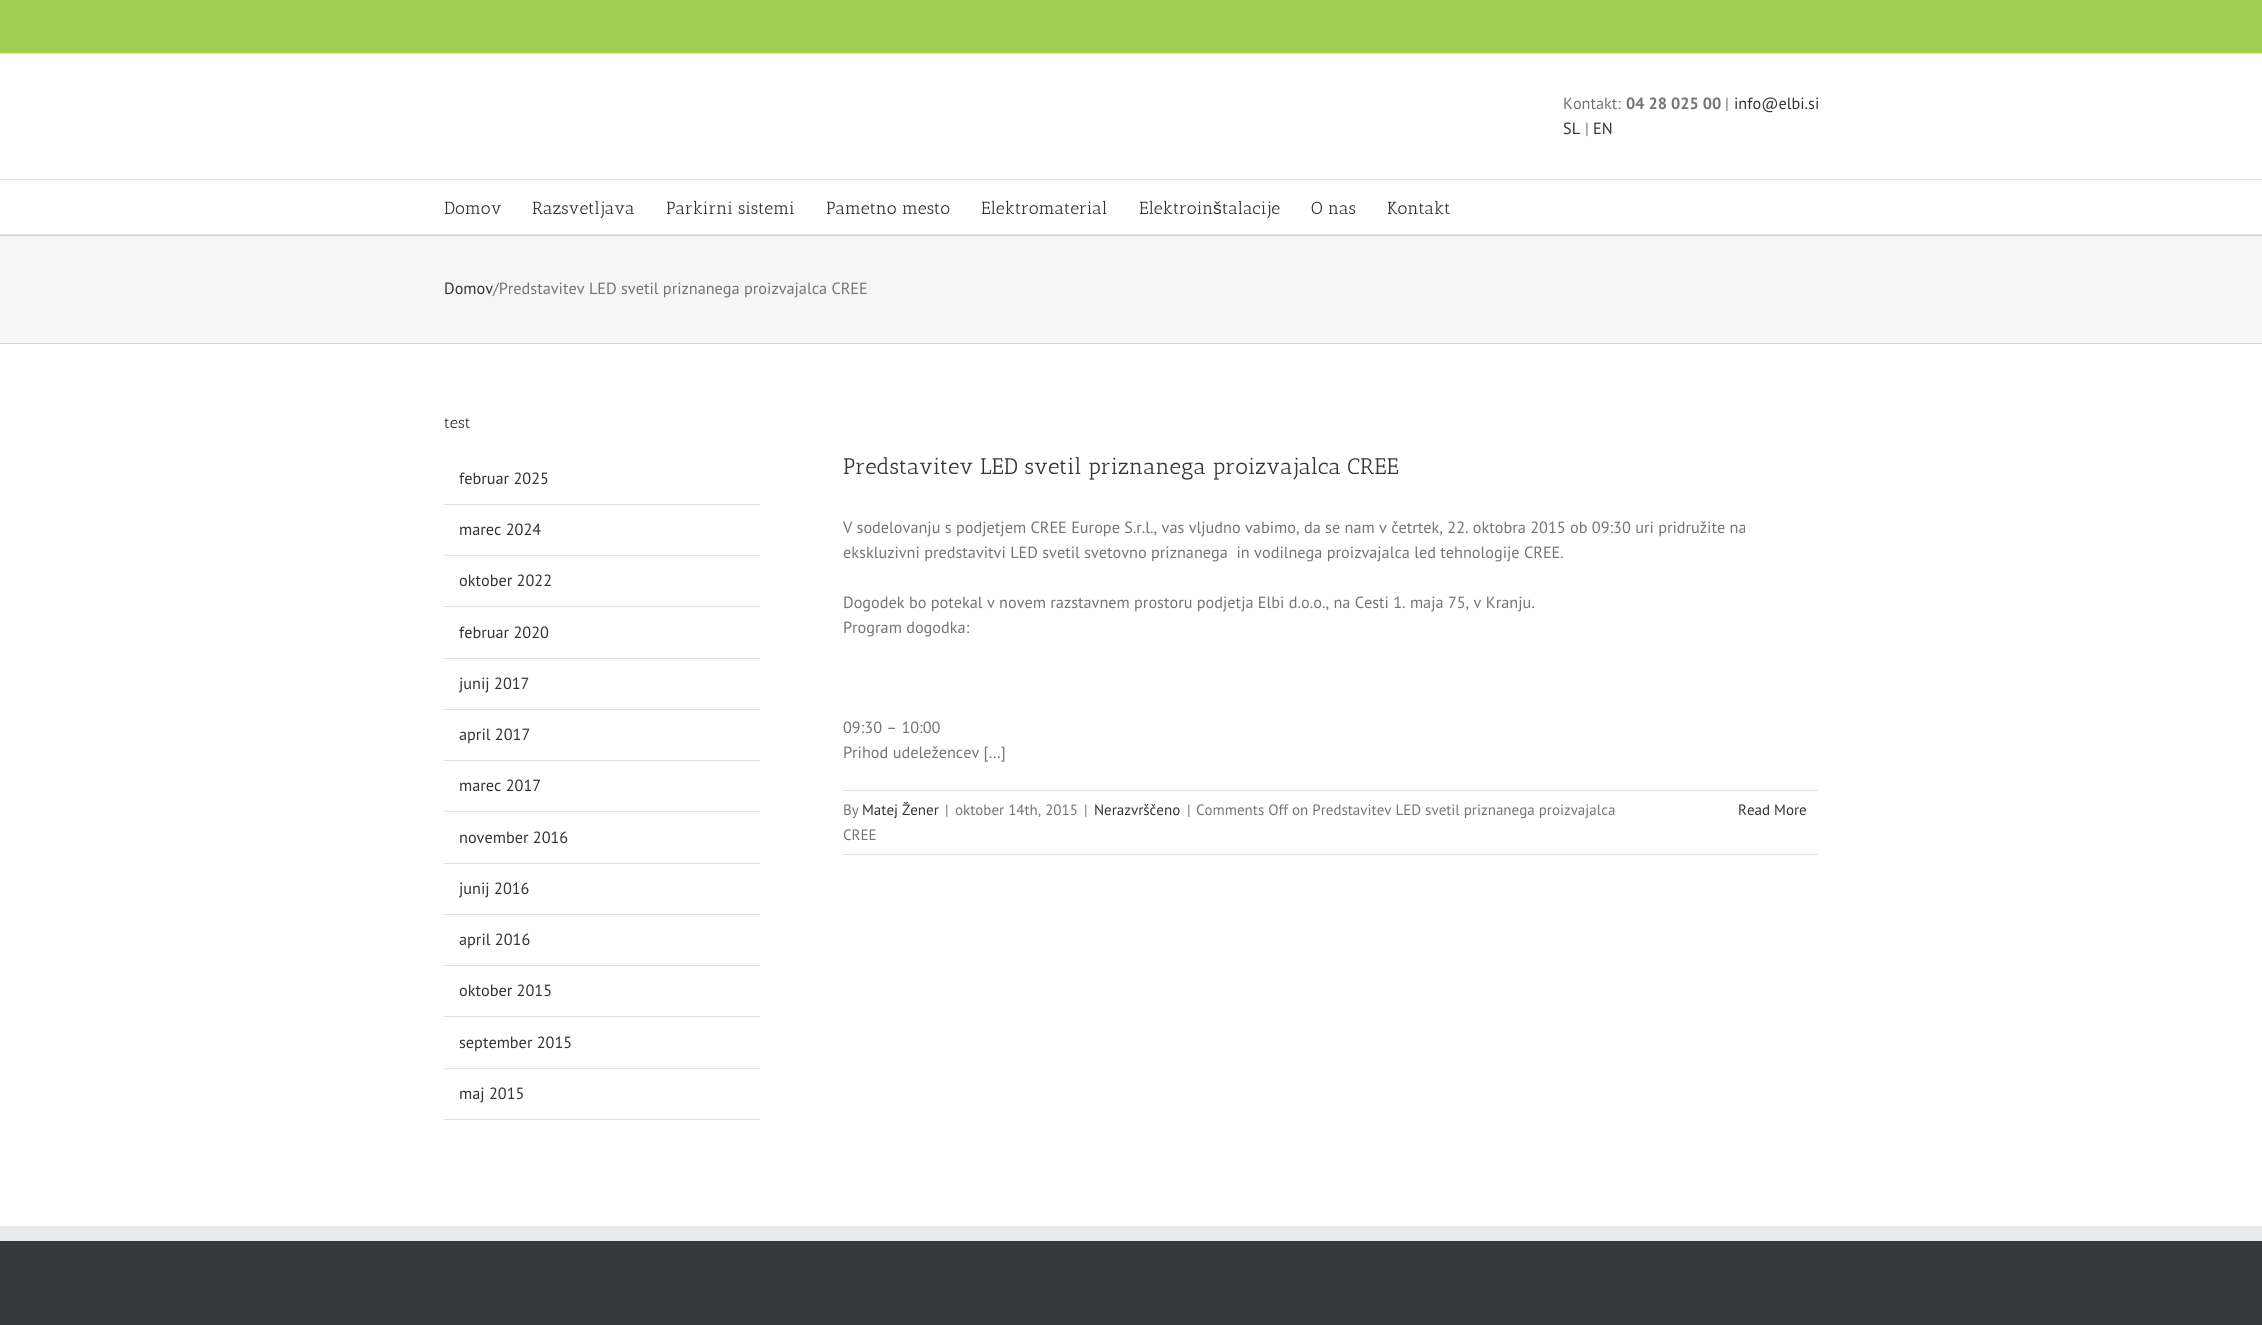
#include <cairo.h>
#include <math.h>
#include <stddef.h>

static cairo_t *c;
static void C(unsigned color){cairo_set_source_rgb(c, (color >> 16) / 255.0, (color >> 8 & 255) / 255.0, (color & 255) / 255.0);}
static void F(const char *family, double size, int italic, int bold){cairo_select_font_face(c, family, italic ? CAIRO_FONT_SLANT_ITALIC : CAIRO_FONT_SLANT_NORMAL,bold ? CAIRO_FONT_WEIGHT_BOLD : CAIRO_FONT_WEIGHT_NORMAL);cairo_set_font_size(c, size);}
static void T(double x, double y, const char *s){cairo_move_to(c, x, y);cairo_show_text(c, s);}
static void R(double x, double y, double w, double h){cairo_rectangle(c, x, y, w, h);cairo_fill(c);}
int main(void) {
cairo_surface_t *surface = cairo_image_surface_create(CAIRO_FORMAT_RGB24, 2262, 1325);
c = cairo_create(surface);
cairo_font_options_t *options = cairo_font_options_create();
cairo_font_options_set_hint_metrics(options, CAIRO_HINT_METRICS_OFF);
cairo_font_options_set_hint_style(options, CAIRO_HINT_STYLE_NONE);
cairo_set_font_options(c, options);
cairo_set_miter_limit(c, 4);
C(0xffffff);
cairo_paint(c);
C(0xa0ce4e);
R(0,0,2262,53);
C(0xe5e5e5);
R(0,53,2262,1);
R(0,179,2262,1);
F("PT Sans",16.25,0,0);
C(0x747474);
T(1563,109,"Kontakt:");
F("PT Sans",16.25,0,1);
T(1626,109,"04 28 025 00");
F("PT Sans",16.25,0,0);
T(1725,109,"|");
C(0x333333);
T(1734,109,"info@elbi.si");
T(1563,134,"SL");
C(0x747474);
T(1585,134,"|");
C(0x333333);
T(1593,134,"EN");
C(0xe5e5e5);
R(0,234,2262,1);
F("Antic Slab",17.5,0,0);
C(0x333333);
T(444,214,"Domov");
T(532,214,"Razsvetljava");
T(666,214,"Parkirni sistemi");
T(826,214,"Pametno mesto");
T(981,214,"Elektromaterial");
T(1139,214,"Elektroin");
F("Liberation Sans",17.5,0,0);
T(1213,214,"š");
F("Antic Slab",17.5,0,0);
T(1222,214,"talacije");
T(1311,214,"O nas");
T(1387,214,"Kontakt");
C(0xf6f6f6);
R(0,236,2262,107);
C(0xd2d3d4);
R(0,235,2262,1);
R(0,343,2262,1);
F("PT Sans",16.25,0,0);
C(0x333333);
T(444,294,"Domov");
C(0x747474);
T(493,294,"/Predstavitev LED svetil priznanega proizvajalca CREE");
F("Antic Slab",16.25,0,0);
C(0x333333);
T(444,428,"test");
C(0xe0dede);
R(444,504,316,1);
F("PT Sans",16.25,0,0);
C(0x333333);
T(459,484,"februar 2025");
C(0xe0dede);
R(444,555,316,1);
C(0x333333);
T(459,535,"marec 2024");
C(0xe0dede);
R(444,606,316,1);
C(0x333333);
T(459,586,"oktober 2022");
C(0xe0dede);
R(444,658,316,1);
C(0x333333);
T(459,638,"februar 2020");
C(0xe0dede);
R(444,709,316,1);
C(0x333333);
T(459,689,"junij 2017");
C(0xe0dede);
R(444,760,316,1);
C(0x333333);
T(459,740,"april 2017");
C(0xe0dede);
R(444,811,316,1);
C(0x333333);
T(459,791,"marec 2017");
C(0xe0dede);
R(444,863,316,1);
C(0x333333);
T(459,843,"november 2016");
C(0xe0dede);
R(444,914,316,1);
C(0x333333);
T(459,894,"junij 2016");
C(0xe0dede);
R(444,965,316,1);
C(0x333333);
T(459,945,"april 2016");
C(0xe0dede);
R(444,1016,316,1);
C(0x333333);
T(459,996,"oktober 2015");
C(0xe0dede);
R(444,1068,316,1);
C(0x333333);
T(459,1048,"september 2015");
C(0xe0dede);
R(444,1119,316,1);
C(0x333333);
T(459,1099,"maj 2015");
F("Antic Slab",22.5,0,0);
T(843,474,"Predstavitev LED svetil priznanega proizvajalca CREE");
F("PT Sans",16.25,0,0);
C(0x747474);
T(843,533,"V sodelovanju s podjetjem CREE Europe S.r.l., vas vljudno vabimo, da se nam v četrtek, 22. oktobra 2015 ob 09:30 uri pridružite na");
T(843,558,"ekskluzivni predstavitvi LED svetil svetovno priznanega  in vodilnega proizvajalca led tehnologije CREE.");
T(843,608,"Dogodek bo potekal v novem razstavnem prostoru podjetja Elbi d.o.o., na Cesti 1. maja 75, v Kranju.");
T(843,633,"Program dogodka:");
T(843,733,"09:30 – 10:00");
T(843,758,"Prihod udeležencev […]");
C(0xe0dede);
R(843,790,976,1);
R(843,854,976,1);
F("PT Sans",15,0,0);
C(0x747474);
T(843,815,"By");
C(0x333333);
T(862,815,"Matej Žener");
C(0x747474);
T(945,815,"|");
T(955,815,"oktober 14th, 2015");
T(1084,815,"|");
C(0x333333);
T(1094,815,"Nerazvrščeno");
C(0x747474);
T(1187,815,"|");
T(1196,815,"Comments Off on Predstavitev LED svetil priznanega proizvajalca");
T(843,840,"CREE");
C(0x333333);
T(1738,815,"Read More");
C(0x363839);
R(0,1241,2262,84);
C(0xe9eaee);
R(0,1226,2262,15);
cairo_surface_write_to_png(surface, "o.png");
cairo_font_options_destroy(options);
cairo_destroy(c);
cairo_surface_destroy(surface);
return 0;
}
